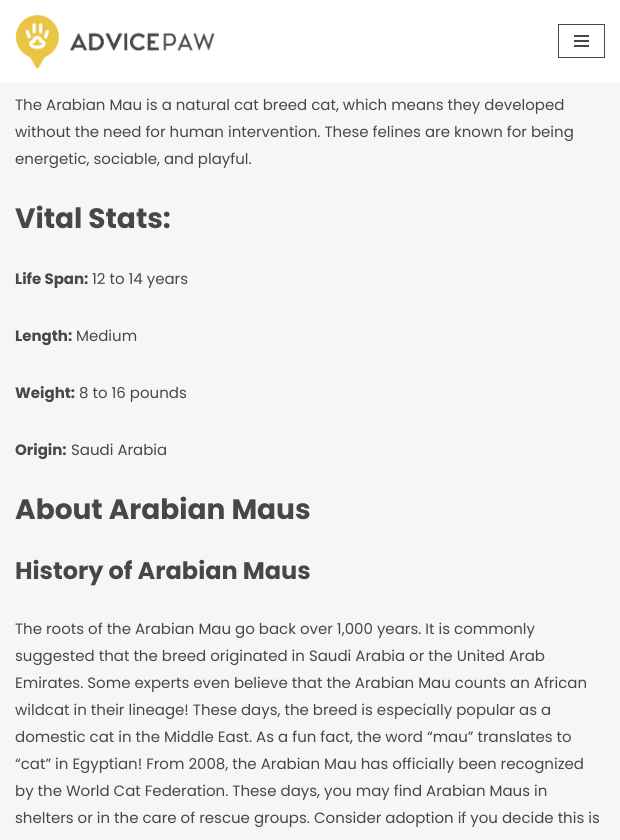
#include <cairo.h>
#include <math.h>
#include <stddef.h>

static cairo_t *c;
static void C(unsigned color){cairo_set_source_rgb(c, (color >> 16) / 255.0, (color >> 8 & 255) / 255.0, (color & 255) / 255.0);}
static void F(const char *family, double size, int italic, int bold){cairo_select_font_face(c, family, italic ? CAIRO_FONT_SLANT_ITALIC : CAIRO_FONT_SLANT_NORMAL,bold ? CAIRO_FONT_WEIGHT_BOLD : CAIRO_FONT_WEIGHT_NORMAL);cairo_set_font_size(c, size);}
static void T(double x, double y, const char *s){cairo_move_to(c, x, y);cairo_show_text(c, s);}
static void R(double x, double y, double w, double h){cairo_rectangle(c, x, y, w, h);cairo_fill(c);}
static void I(const char *path, double x, double y, double w, double h){cairo_surface_t *image = cairo_image_surface_create_from_png(path);cairo_save(c);cairo_set_source_surface(c, image, x, y);cairo_rectangle(c, x, y, w, h);cairo_fill(c);cairo_restore(c);cairo_surface_destroy(image);}
int main(void) {
cairo_surface_t *surface = cairo_image_surface_create(CAIRO_FORMAT_RGB24, 620, 840);
c = cairo_create(surface);
cairo_font_options_t *options = cairo_font_options_create();
cairo_font_options_set_hint_metrics(options, CAIRO_HINT_METRICS_OFF);
cairo_font_options_set_hint_style(options, CAIRO_HINT_STYLE_NONE);
cairo_set_font_options(c, options);
cairo_set_miter_limit(c, 4);
C(0xf6f6f6);
cairo_paint(c);
C(0xffffff);
R(0,0,620,83);
I("1.png",15,15,200,54);
cairo_rectangle(c,558.5,24.5,46,33);
C(0x474747);
cairo_set_line_width(c,1);
cairo_stroke(c);
R(574,35,15,2);
R(574,40,15,2);
R(574,45,15,2);
F("Poppins",15,0,0);
T(15,110,"The Arabian Mau is a natural cat breed cat, which means they developed");
T(15,137,"without the need for human intervention. These felines are known for being");
T(15,164,"energetic, sociable, and playful.");
F("Poppins",28,0,1);
T(15,228,"Vital Stats:");
F("Poppins",15,0,1);
T(15,284,"Life Span:");
F("Poppins",15,0,0);
T(92,284,"12 to 14 years");
F("Poppins",15,0,1);
T(15,341,"Length:");
F("Poppins",15,0,0);
T(76,341,"Medium");
F("Poppins",15,0,1);
T(15,398,"Weight:");
F("Poppins",15,0,0);
T(79,398,"8 to 16 pounds");
F("Poppins",15,0,1);
T(15,455,"Origin:");
F("Poppins",15,0,0);
T(71,455,"Saudi Arabia");
F("Poppins",28,0,1);
T(15,519,"About Arabian Maus");
F("Poppins",24,0,1);
T(15,579,"History of Arabian Maus");
F("Poppins",15,0,0);
T(15,634,"The roots of the Arabian Mau go back over 1,000 years. It is commonly");
T(15,661,"suggested that the breed originated in Saudi Arabia or the United Arab");
T(15,688,"Emirates. Some experts even believe that the Arabian Mau counts an African");
T(15,715,"wildcat in their lineage! These days, the breed is especially popular as a");
T(15,742,"domestic cat in the Middle East. As a fun fact, the word “mau” translates to");
T(15,769,"“cat” in Egyptian! From 2008, the Arabian Mau has officially been recognized");
T(15,796,"by the World Cat Federation. These days, you may find Arabian Maus in");
T(15,823,"shelters or in the care of rescue groups. Consider adoption if you decide this is");
cairo_surface_write_to_png(surface, "o.png");
cairo_font_options_destroy(options);
cairo_destroy(c);
cairo_surface_destroy(surface);
return 0;
}
